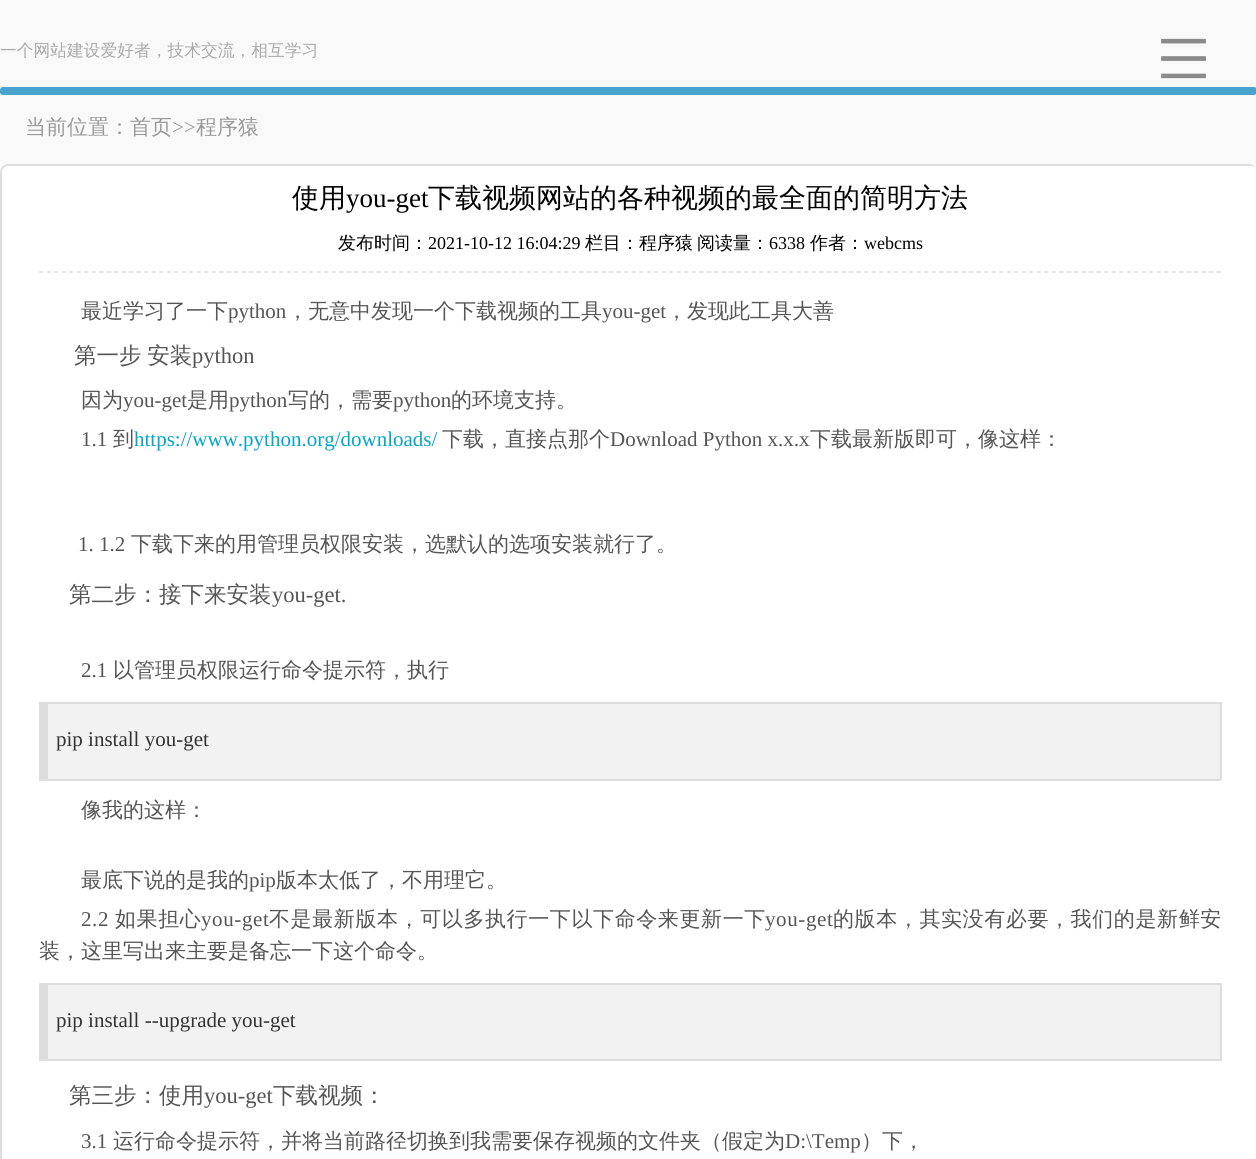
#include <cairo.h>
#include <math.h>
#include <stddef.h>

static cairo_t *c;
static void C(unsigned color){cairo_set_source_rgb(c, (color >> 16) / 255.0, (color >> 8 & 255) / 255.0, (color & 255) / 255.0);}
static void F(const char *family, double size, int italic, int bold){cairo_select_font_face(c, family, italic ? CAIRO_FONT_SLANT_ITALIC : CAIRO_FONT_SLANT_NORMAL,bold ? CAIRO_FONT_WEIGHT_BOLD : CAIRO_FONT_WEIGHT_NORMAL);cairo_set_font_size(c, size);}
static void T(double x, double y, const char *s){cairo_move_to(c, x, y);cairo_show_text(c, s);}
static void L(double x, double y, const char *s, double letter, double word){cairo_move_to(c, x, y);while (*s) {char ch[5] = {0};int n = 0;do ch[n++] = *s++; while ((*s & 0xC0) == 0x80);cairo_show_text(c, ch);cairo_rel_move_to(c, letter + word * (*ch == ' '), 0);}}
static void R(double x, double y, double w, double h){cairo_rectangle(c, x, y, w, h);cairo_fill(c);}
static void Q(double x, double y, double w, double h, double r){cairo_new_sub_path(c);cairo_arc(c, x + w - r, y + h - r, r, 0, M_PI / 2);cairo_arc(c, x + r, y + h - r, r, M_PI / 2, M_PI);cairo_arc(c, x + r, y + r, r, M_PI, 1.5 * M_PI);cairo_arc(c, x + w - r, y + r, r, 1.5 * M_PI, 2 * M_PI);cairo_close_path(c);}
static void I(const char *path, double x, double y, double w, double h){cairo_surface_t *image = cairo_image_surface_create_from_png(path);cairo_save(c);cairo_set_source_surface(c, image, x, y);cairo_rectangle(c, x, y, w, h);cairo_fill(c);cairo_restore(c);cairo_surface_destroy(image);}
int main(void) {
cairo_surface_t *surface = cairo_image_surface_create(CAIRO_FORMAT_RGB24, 1256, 1159);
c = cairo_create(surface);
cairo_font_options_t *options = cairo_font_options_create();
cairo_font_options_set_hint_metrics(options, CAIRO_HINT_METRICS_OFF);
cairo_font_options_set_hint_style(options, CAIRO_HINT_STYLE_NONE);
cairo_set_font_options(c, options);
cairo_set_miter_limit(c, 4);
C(0xf9f9f9);
cairo_paint(c);
F("WenQuanYi Zen Hei Medium",16.75,0,0);
C(0xaaaaaa);
T(0,56,"一个网站建设爱好者，技术交流，相互学习");
I("1.png",1161,38,45,41);
C(0x46a4cd);
Q(0,87,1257,8,3);
cairo_fill(c);
F("WenQuanYi Zen Hei Medium",21,0,0);
C(0x999999);
T(25,134,"当前位置：首页");
F("Liberation Serif",21,0,0);
T(172,134,">>");
F("WenQuanYi Zen Hei Medium",21,0,0);
T(196,134,"程序猿");
cairo_save(c);
Q(0,164,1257,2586,8);
cairo_clip(c);
C(0xffffff);
Q(0,164,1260,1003,8);
cairo_fill(c);
cairo_restore(c);
C(0xdddddd);
cairo_new_path(c);
cairo_move_to(c,8,164);
cairo_curve_to(c,4,164,0,168,0,172);
cairo_line_to(c,0,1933);
cairo_curve_to(c,0,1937,4,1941,8,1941);
cairo_line_to(c,1252,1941);
cairo_curve_to(c,1254,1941,1256,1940,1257,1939);
cairo_line_to(c,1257,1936);
cairo_curve_to(c,1256,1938,1254,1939,1252,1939);
cairo_line_to(c,8,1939);
cairo_curve_to(c,5,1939,2,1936,2,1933);
cairo_line_to(c,2,172);
cairo_curve_to(c,2,169,5,166,8,166);
cairo_line_to(c,1252,166);
cairo_line_to(c,1255,167);
cairo_curve_to(c,1254,165,1251,164,1249,164);
cairo_close_path(c);
cairo_fill(c);
F("WenQuanYi Zen Hei Medium",27,0,0);
C(0x000000);
T(292,207,"使用");
F("Liberation Serif",27,0,0);
T(346,207,"you-get");
F("WenQuanYi Zen Hei Medium",27,0,0);
T(428,207,"下载视频网站的各种视频的最全面的简明方法");
F("WenQuanYi Zen Hei Medium",18,0,0);
T(338,249,"发布时间：");
F("Liberation Serif",18,0,0);
T(428,249,"2021-10-12 16:04:29");
F("WenQuanYi Zen Hei Medium",18,0,0);
T(585,249,"栏目：程序猿");
T(697,249,"阅读量：");
F("Liberation Serif",18,0,0);
T(769,249,"6338");
F("WenQuanYi Zen Hei Medium",18,0,0);
T(810,249,"作者：");
F("Liberation Serif",18,0,0);
T(864,249,"webcms");
cairo_new_path(c);
cairo_move_to(c,39,272);
cairo_line_to(c,1221,272);
C(0xdedede);
cairo_set_line_width(c,1.5);
cairo_set_dash(c,(double[]){4.5,3},2,0);
cairo_stroke(c);
F("WenQuanYi Zen Hei Medium",21,0,0);
C(0x555555);
T(81,318,"最近学习了一下");
F("Liberation Serif",21,0,0);
T(228,318,"python");
F("WenQuanYi Zen Hei Medium",21,0,0);
T(287,318,"，无意中发现一个下载视频的工具");
F("Liberation Serif",21,0,0);
T(602,318,"you-get");
F("WenQuanYi Zen Hei Medium",21,0,0);
T(666,318,"，发现此工具大善");
F("WenQuanYi Zen Hei Medium",22.5,0,0);
L(74,363,"第一步 安装",0,-1);
F("Liberation Serif",22.5,0,0);
T(192,363,"python");
F("WenQuanYi Zen Hei Medium",21,0,0);
T(81,407,"因为");
F("Liberation Serif",21,0,0);
T(123,407,"you-get");
F("WenQuanYi Zen Hei Medium",21,0,0);
T(187,407,"是用");
F("Liberation Serif",21,0,0);
T(229,407,"python");
F("WenQuanYi Zen Hei Medium",21,0,0);
T(288,407,"写的，需要");
F("Liberation Serif",21,0,0);
T(393,407,"python");
F("WenQuanYi Zen Hei Medium",21,0,0);
T(451,407,"的环境支持。");
F("Liberation Serif",21,0,0);
T(81,446,"1.1");
F("WenQuanYi Zen Hei Medium",21,0,0);
T(113,446,"到");
F("Liberation Serif",21,0,0);
C(0x04a4cc);
T(134,446,"https://www.python.org/downloads/");
F("WenQuanYi Zen Hei Medium",21,0,0);
C(0x555555);
T(442,446,"下载，直接点那个");
F("Liberation Serif",21,0,0);
T(610,446,"Download Python x.x.x");
F("WenQuanYi Zen Hei Medium",21,0,0);
T(810,446,"下载最新版即可，像这样：");
F("Liberation Serif",21,0,0);
T(78,551,"1. 1.2");
F("WenQuanYi Zen Hei Medium",21,0,0);
T(131,551,"下载下来的用管理员权限安装，选默认的选项安装就行了。");
F("WenQuanYi Zen Hei Medium",22.5,0,0);
T(69,602,"第二步：接下来安装");
F("Liberation Serif",22.5,0,0);
T(272,602,"you-get.");
F("Liberation Serif",21,0,0);
T(81,677,"2.1");
F("WenQuanYi Zen Hei Medium",21,0,0);
T(113,677,"以管理员权限运行命令提示符，执行");
C(0xf2f2f2);
R(48,704,1172,75);
C(0xdddddd);
R(48,702,1173,2);
R(1220,702,2,78);
R(39,779,1182,2);
R(39,702,9,77);
F("Liberation Serif",21,0,0);
C(0x333333);
T(56,746,"pip install you-get");
F("WenQuanYi Zen Hei Medium",21,0,0);
C(0x555555);
T(81,817,"像我的这样：");
T(81,887,"最底下说的是我的");
F("Liberation Serif",21,0,0);
T(249,887,"pip");
F("WenQuanYi Zen Hei Medium",21,0,0);
T(276,887,"版本太低了，不用理它。");
F("Liberation Serif",21,0,0);
L(81,926,"2.2",.6,0);
F("WenQuanYi Zen Hei Medium",21,0,0);
L(115,926,"如果担心",.6,0);
F("Liberation Serif",21,0,0);
L(201,926,"you-get",.6,0);
F("WenQuanYi Zen Hei Medium",21,0,0);
L(269,926,"不是最新版本，可以多执行一下以下命令来更新一下",.6,0);
F("Liberation Serif",21,0,0);
L(765,926,"you-get",.6,0);
F("WenQuanYi Zen Hei Medium",21,0,0);
L(833,926,"的版本，其实没有必要，我们的是新鲜安",.6,0);
T(39,958,"装，这里写出来主要是备忘一下这个命令。");
C(0xf2f2f2);
R(48,985,1172,74);
C(0xdddddd);
R(48,983,1173,2);
R(1220,983,2,78);
R(48,1059,1173,2);
R(39,983,9,78);
F("Liberation Serif",21,0,0);
C(0x333333);
T(56,1027,"pip install --upgrade you-get");
F("WenQuanYi Zen Hei Medium",22.5,0,0);
C(0x555555);
T(69,1103,"第三步：使用");
F("Liberation Serif",22.5,0,0);
T(204,1103,"you-get");
F("WenQuanYi Zen Hei Medium",22.5,0,0);
T(273,1103,"下载视频：");
F("Liberation Serif",21,0,0);
T(81,1148,"3.1");
F("WenQuanYi Zen Hei Medium",21,0,0);
T(113,1148,"运行命令提示符，并将当前路径切换到我需要保存视频的文件夹（假定为");
F("Liberation Serif",21,0,0);
T(785,1148,"D:\\Temp");
F("WenQuanYi Zen Hei Medium",21,0,0);
T(861,1148,"）下，");
cairo_surface_write_to_png(surface, "o.png");
cairo_font_options_destroy(options);
cairo_destroy(c);
cairo_surface_destroy(surface);
return 0;
}
